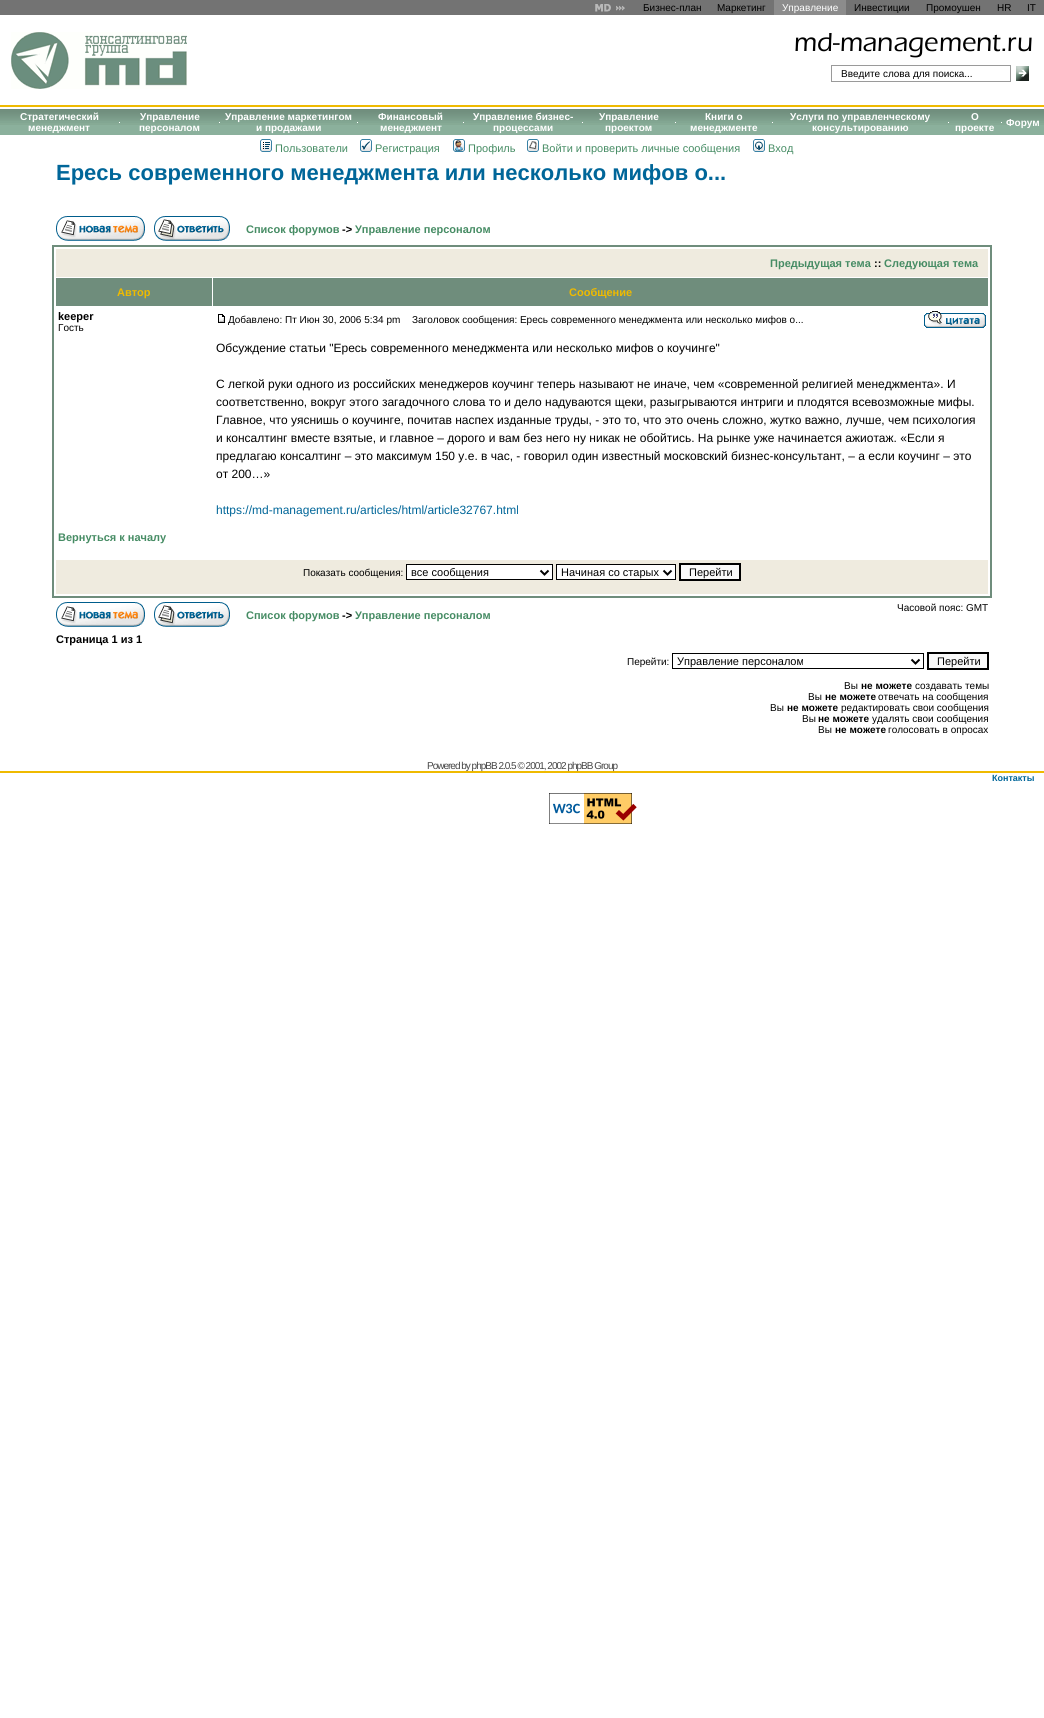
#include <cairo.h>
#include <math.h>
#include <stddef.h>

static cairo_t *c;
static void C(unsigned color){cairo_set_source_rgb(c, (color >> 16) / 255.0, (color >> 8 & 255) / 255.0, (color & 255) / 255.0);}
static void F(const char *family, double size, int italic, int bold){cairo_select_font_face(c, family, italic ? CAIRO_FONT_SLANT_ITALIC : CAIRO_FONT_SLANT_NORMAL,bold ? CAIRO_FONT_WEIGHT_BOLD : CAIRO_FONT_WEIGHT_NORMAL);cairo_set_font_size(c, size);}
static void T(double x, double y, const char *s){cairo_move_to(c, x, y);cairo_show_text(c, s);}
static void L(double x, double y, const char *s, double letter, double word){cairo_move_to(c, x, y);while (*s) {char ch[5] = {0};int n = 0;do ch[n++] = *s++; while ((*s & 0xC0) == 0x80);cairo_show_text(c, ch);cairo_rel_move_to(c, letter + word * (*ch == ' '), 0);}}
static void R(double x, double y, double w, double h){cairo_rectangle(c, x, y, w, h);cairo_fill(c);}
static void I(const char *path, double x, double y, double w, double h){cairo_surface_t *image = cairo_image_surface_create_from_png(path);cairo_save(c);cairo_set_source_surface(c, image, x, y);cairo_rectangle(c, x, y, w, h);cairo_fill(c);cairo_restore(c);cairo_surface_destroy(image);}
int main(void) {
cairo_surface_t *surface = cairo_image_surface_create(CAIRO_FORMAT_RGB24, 1044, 1718);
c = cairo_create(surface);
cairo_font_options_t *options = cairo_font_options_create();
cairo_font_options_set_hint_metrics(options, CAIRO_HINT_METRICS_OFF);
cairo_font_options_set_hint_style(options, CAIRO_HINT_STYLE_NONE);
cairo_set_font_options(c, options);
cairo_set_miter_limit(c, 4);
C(0xffffff);
cairo_paint(c);
C(0x737373);
R(0,0,1044,15);
I("1.png",595,4,30,8);
F("Liberation Sans",10,0,0);
C(0x000000);
T(643,11,"Бизнес-план");
T(717,11,"Маркетинг");
C(0x8c8c8c);
R(774,0,72,15);
C(0xffffff);
T(782,11,"Управление");
C(0x000000);
T(854,11,"Инвестиции");
T(926,11,"Промоушен");
T(997,11,"HR");
T(1027,11,"IT");
I("2.png",11,32,176,57);
I("3.png",795,33,237,25);
cairo_rectangle(c,831.5,65.5,179,16);
C(0x9a9a9a);
cairo_set_line_width(c,1);
cairo_stroke(c);
C(0x000000);
T(841,77,"Введите слова для поиска...");
I("4.png",1016,66,13,15);
C(0xefba00);
R(0,105,1044,2);
C(0x8bb09c);
R(0,125,1044,10);
I("5.png",0,109,1044,16);
F("Liberation Sans",10,0,1);
C(0xffffff);
T(20,120,"Стратегический");
T(28,131,"менеджмент");
R(119,122,1,1);
T(140,120,"Управление");
T(139,131,"персоналом");
R(219,122,1,1);
T(225,120,"Управление маркетингом");
T(256,131,"и продажами");
R(357,122,1,1);
T(378,120,"Финансовый");
T(380,131,"менеджмент");
R(463,122,1,1);
T(473,120,"Управление бизнес-");
T(493,131,"процессами");
R(582,122,1,1);
T(599,120,"Управление");
T(605,131,"проектом");
R(675,122,1,1);
T(705,120,"Книги о");
T(690,131,"менеджменте");
R(772,122,1,1);
T(790,120,"Услуги по управленческому");
T(812,131,"консультированию");
R(948,122,1,1);
T(971,120,"О");
T(955,131,"проекте");
R(1001,122,1,1);
T(1006,126,"Форум");
I("6.png",260,139,12,13);
F("Liberation Sans",11,0,0);
C(0x468c64);
T(275,152,"Пользователи");
I("7.png",360,139,12,13);
T(375,152,"Регистрация");
I("8.png",453,139,12,13);
T(468,152,"Профиль");
I("9.png",527,139,12,13);
T(542,152,"Войти и проверить личные сообщения");
I("10.png",753,139,12,13);
T(768,152,"Вход");
F("Liberation Sans",22,0,1);
C(0x006699);
T(56,180,"Ересь современного менеджмента или несколько мифов о...");
I("11.png",56,216,89,25);
I("12.png",154,216,76,25);
F("Liberation Sans",11,0,1);
C(0x468c64);
T(246,233,"Список форумов");
C(0x000000);
T(342,233,"->");
C(0x468c64);
T(355,233,"Управление персоналом");
cairo_rectangle(c,53,246,938,351);
C(0x6f8d7c);
cairo_set_line_width(c,2);
cairo_stroke(c);
C(0xefebdf);
R(56,249,932,28);
C(0x468c64);
T(770,267,"Предыдущая тема");
C(0x000000);
T(874,267,"::");
C(0x468c64);
T(884,267,"Следующая тема");
C(0x6f8d7c);
R(56,278,156,28);
C(0xefba00);
T(117,296,"Автор");
C(0x6f8d7c);
R(213,278,775,28);
C(0xefba00);
T(569,296,"Сообщение");
C(0x000000);
T(58,320,"keeper");
F("Liberation Sans",10,0,0);
T(58,331,"Гость");
I("13.png",218,314,7,9);
T(228,323,"Добавлено: Пт Июн 30, 2006 5:34 pm");
T(412,323,"Заголовок сообщения: Ересь современного менеджмента или несколько мифов о...");
I("14.png",924,311,62,17);
F("Liberation Sans",12,0,0);
T(216,352,"Обсуждение статьи \"Ересь современного менеджмента или несколько мифов о коучинге\"");
T(216,388,"С легкой руки одного из российских менеджеров коучинг теперь называют не иначе, чем «современной религией менеджмента». И");
T(216,406,"соответственно, вокруг этого загадочного слова то и дело надуваются щеки, разыгрываются интриги и плодятся всевозможные мифы.");
T(216,424,"Главное, что уяснишь о коучинге, почитав наспех изданные труды, - это то, что это очень сложно, жутко важно, лучше, чем психология");
T(216,442,"и консалтинг вместе взятые, и главное – дорого и вам без него ну никак не обойтись. На рынке уже начинается ажиотаж. «Если я");
T(216,460,"предлагаю консалтинг – это максимум 150 у.е. в час, - говорил один известный московский бизнес-консультант, – а если коучинг – это");
T(216,478,"от 200…»");
C(0x006699);
T(216,514,"https://md-management.ru/articles/html/article32767.html");
F("Liberation Sans",11,0,1);
C(0x468c64);
T(58,541,"Вернуться к началу");
C(0xefebdf);
R(56,560,932,34);
F("Liberation Sans",10,0,0);
C(0x000000);
T(303,576,"Показать сообщения:");
C(0xffffff);
cairo_rectangle(c,406.5,564.5,146,15);
cairo_fill_preserve(c);
C(0x000000);
cairo_set_line_width(c,1);
cairo_stroke(c);
cairo_new_path(c);
cairo_move_to(c,540.5,570.5);
cairo_line_to(c,544.5,574.5);
cairo_line_to(c,548.5,570.5);
cairo_set_line_width(c,2);
cairo_stroke(c);
F("Liberation Sans",11,0,0);
T(411,576,"все сообщения");
C(0xffffff);
cairo_rectangle(c,556.5,564.5,119,15);
cairo_fill_preserve(c);
C(0x000000);
cairo_set_line_width(c,1);
cairo_stroke(c);
cairo_new_path(c);
cairo_move_to(c,663.5,570.5);
cairo_line_to(c,667.5,574.5);
cairo_line_to(c,671.5,570.5);
cairo_set_line_width(c,2);
cairo_stroke(c);
T(561,576,"Начиная со старых");
C(0xfafafa);
cairo_rectangle(c,680,564,60,16);
cairo_fill_preserve(c);
C(0x000000);
cairo_stroke(c);
T(689,576,"Перейти");
I("11.png",56,602,89,25);
I("12.png",154,602,76,25);
F("Liberation Sans",10,0,0);
T(897,611,"Часовой пояс: GMT");
F("Liberation Sans",11,0,1);
C(0x468c64);
T(246,619,"Список форумов");
C(0x000000);
T(342,619,"->");
C(0x468c64);
T(355,619,"Управление персоналом");
C(0x000000);
T(56,643,"Страница 1 из 1");
F("Liberation Sans",10,0,0);
T(627,665,"Перейти:");
cairo_rectangle(c,672.5,653.5,251,15);
cairo_set_line_width(c,1);
cairo_stroke(c);
cairo_new_path(c);
cairo_move_to(c,911.5,659.5);
cairo_line_to(c,915.5,663.5);
cairo_line_to(c,919.5,659.5);
cairo_set_line_width(c,2);
cairo_stroke(c);
F("Liberation Sans",11,0,0);
T(677,665,"Управление персоналом");
C(0xfafafa);
cairo_rectangle(c,928,653,60,16);
cairo_fill_preserve(c);
C(0x000000);
cairo_stroke(c);
T(937,665,"Перейти");
F("Liberation Sans",10,0,0);
T(844,689,"Вы");
F("Liberation Sans",10,0,1);
T(861,689,"не можете");
F("Liberation Sans",10,0,0);
T(915,689,"создавать темы");
T(808,700,"Вы");
F("Liberation Sans",10,0,1);
T(825,700,"не можете");
F("Liberation Sans",10,0,0);
T(878,700,"отвечать на сообщения");
T(770,711,"Вы");
F("Liberation Sans",10,0,1);
T(787,711,"не можете");
F("Liberation Sans",10,0,0);
T(841,711,"редактировать свои сообщения");
T(802,722,"Вы");
F("Liberation Sans",10,0,1);
T(818,722,"не можете");
F("Liberation Sans",10,0,0);
T(872,722,"удалять свои сообщения");
T(818,733,"Вы");
F("Liberation Sans",10,0,1);
T(835,733,"не можете");
F("Liberation Sans",10,0,0);
T(888,733,"голосовать в опросах");
C(0xefba00);
R(0,771,1044,2);
C(0x444444);
L(427,769,"Powered by phpBB 2.0.5 © 2001, 2002 phpBB Group",-1,0);
F("Liberation Sans",9,0,1);
C(0x006699);
T(992,781,"Контакты");
I("15.png",549,793,88,31);
cairo_surface_write_to_png(surface, "o.png");
cairo_font_options_destroy(options);
cairo_destroy(c);
cairo_surface_destroy(surface);
return 0;
}
